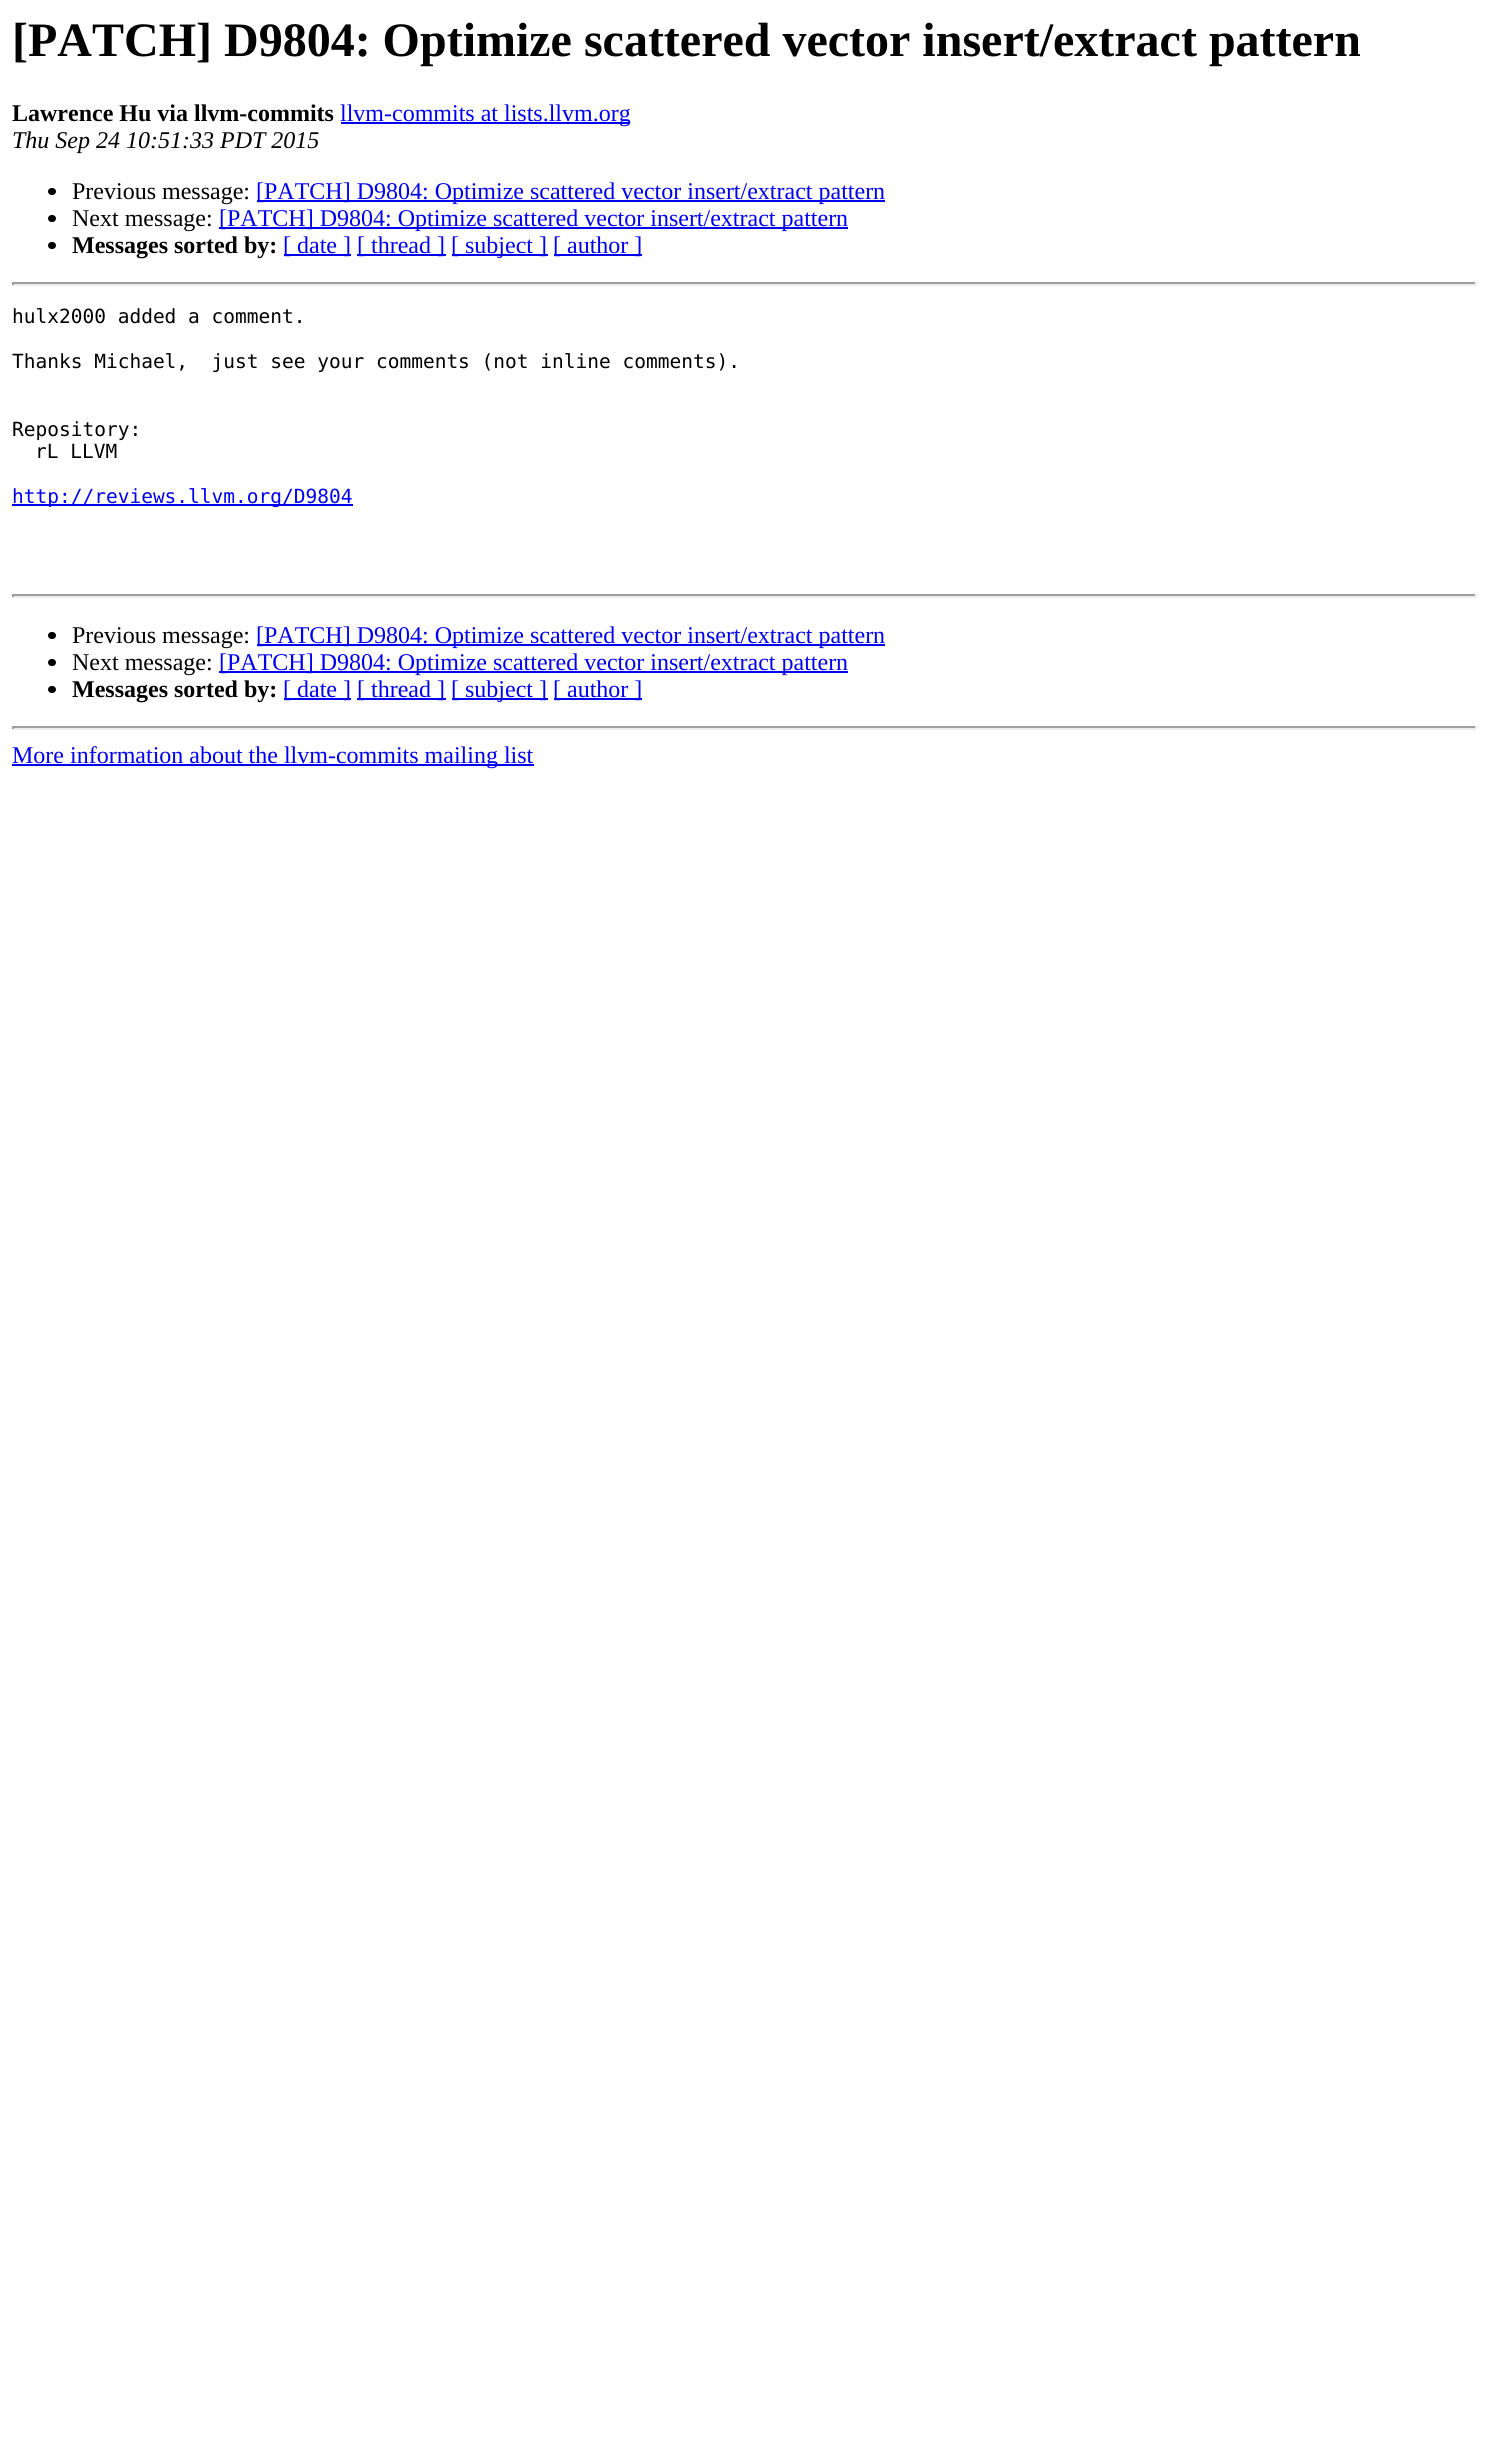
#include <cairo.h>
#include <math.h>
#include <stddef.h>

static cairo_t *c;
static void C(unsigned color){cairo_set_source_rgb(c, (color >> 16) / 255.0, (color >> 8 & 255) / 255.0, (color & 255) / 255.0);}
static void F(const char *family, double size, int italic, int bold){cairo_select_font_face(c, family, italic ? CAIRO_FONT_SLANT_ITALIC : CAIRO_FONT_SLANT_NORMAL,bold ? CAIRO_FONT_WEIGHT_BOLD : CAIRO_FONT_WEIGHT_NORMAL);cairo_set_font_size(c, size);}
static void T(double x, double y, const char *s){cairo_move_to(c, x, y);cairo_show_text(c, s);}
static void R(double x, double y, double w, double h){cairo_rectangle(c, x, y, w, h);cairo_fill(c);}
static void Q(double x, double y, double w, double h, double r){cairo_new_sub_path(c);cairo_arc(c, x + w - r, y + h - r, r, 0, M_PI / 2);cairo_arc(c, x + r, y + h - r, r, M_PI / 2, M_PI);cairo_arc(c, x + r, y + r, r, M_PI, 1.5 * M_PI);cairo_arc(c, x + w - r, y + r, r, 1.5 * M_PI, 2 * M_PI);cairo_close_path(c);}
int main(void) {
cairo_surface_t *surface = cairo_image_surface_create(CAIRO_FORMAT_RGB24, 1487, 2458);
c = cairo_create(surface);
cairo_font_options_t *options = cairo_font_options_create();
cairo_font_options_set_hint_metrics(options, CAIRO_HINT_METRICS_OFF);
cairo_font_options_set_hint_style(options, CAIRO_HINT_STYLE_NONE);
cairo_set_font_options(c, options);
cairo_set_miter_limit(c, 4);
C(0xffffff);
cairo_paint(c);
F("Liberation Serif",48,0,1);
C(0x000000);
T(12,56,"[PATCH] D9804: Optimize scattered vector insert/extract pattern");
F("Liberation Serif",24,0,1);
T(12,121,"Lawrence Hu via llvm-commits");
C(0x0000ee);
R(341,122,289,2);
F("Liberation Serif",24,0,0);
T(340,121,"llvm-commits at lists.llvm.org");
F("Liberation Serif",24,1,0);
C(0x000000);
T(12,148,"Thu Sep 24 10:51:33 PDT 2015");
Q(48,188,8,7,3.5);
cairo_fill(c);
F("Liberation Serif",24,0,0);
T(72,199,"Previous message:");
C(0x0000ee);
R(257,200,628,2);
T(256,199,"[PATCH] D9804: Optimize scattered vector insert/extract pattern");
C(0x000000);
Q(48,215,8,7,3.5);
cairo_fill(c);
T(72,226,"Next message:");
C(0x0000ee);
R(219,227,629,2);
T(219,226,"[PATCH] D9804: Optimize scattered vector insert/extract pattern");
C(0x000000);
Q(48,242,8,7,3.5);
cairo_fill(c);
F("Liberation Serif",24,0,1);
T(72,253,"Messages sorted by:");
C(0x0000ee);
R(284,254,67,2);
F("Liberation Serif",24,0,0);
T(283,253,"[ date ]");
R(357,254,89,2);
T(357,253,"[ thread ]");
R(452,254,96,2);
T(451,253,"[ subject ]");
R(554,254,88,2);
T(553,253,"[ author ]");
C(0x9f9f9f);
R(12,282,1464,2);
C(0xeeeeee);
R(1475,282,2,3);
R(12,284,1464,2);
C(0x9f9f9f);
R(12,282,2,3);
F("DejaVu Sans Mono",19.5,0,0);
C(0x000000);
T(12,323,"hulx2000 added a comment.");
T(12,368,"Thanks Michael,  just see your comments (not inline comments).");
T(12,436,"Repository:");
T(35,458,"rL LLVM");
C(0x0000ee);
R(12,504,341,2);
T(12,503,"http://reviews.llvm.org/D9804");
C(0x9f9f9f);
R(12,594,1464,2);
C(0xeeeeee);
R(1475,594,2,3);
R(12,596,1464,2);
C(0x9f9f9f);
R(12,594,2,3);
C(0x000000);
Q(48,632,8,7,3.5);
cairo_fill(c);
F("Liberation Serif",24,0,0);
T(72,643,"Previous message:");
C(0x0000ee);
R(257,644,628,2);
T(256,643,"[PATCH] D9804: Optimize scattered vector insert/extract pattern");
C(0x000000);
Q(48,659,8,7,3.5);
cairo_fill(c);
T(72,670,"Next message:");
C(0x0000ee);
R(219,671,629,2);
T(219,670,"[PATCH] D9804: Optimize scattered vector insert/extract pattern");
C(0x000000);
Q(48,686,8,7,3.5);
cairo_fill(c);
F("Liberation Serif",24,0,1);
T(72,697,"Messages sorted by:");
C(0x0000ee);
R(284,698,67,2);
F("Liberation Serif",24,0,0);
T(283,697,"[ date ]");
R(357,698,89,2);
T(357,697,"[ thread ]");
R(452,698,96,2);
T(451,697,"[ subject ]");
R(554,698,88,2);
T(553,697,"[ author ]");
C(0x9f9f9f);
R(12,726,1464,2);
C(0xeeeeee);
R(1475,726,2,3);
R(12,728,1464,2);
C(0x9f9f9f);
R(12,726,2,3);
C(0x0000ee);
R(12,764,522,2);
T(12,763,"More information about the llvm-commits mailing list");
cairo_surface_write_to_png(surface, "o.png");
cairo_font_options_destroy(options);
cairo_destroy(c);
cairo_surface_destroy(surface);
return 0;
}
